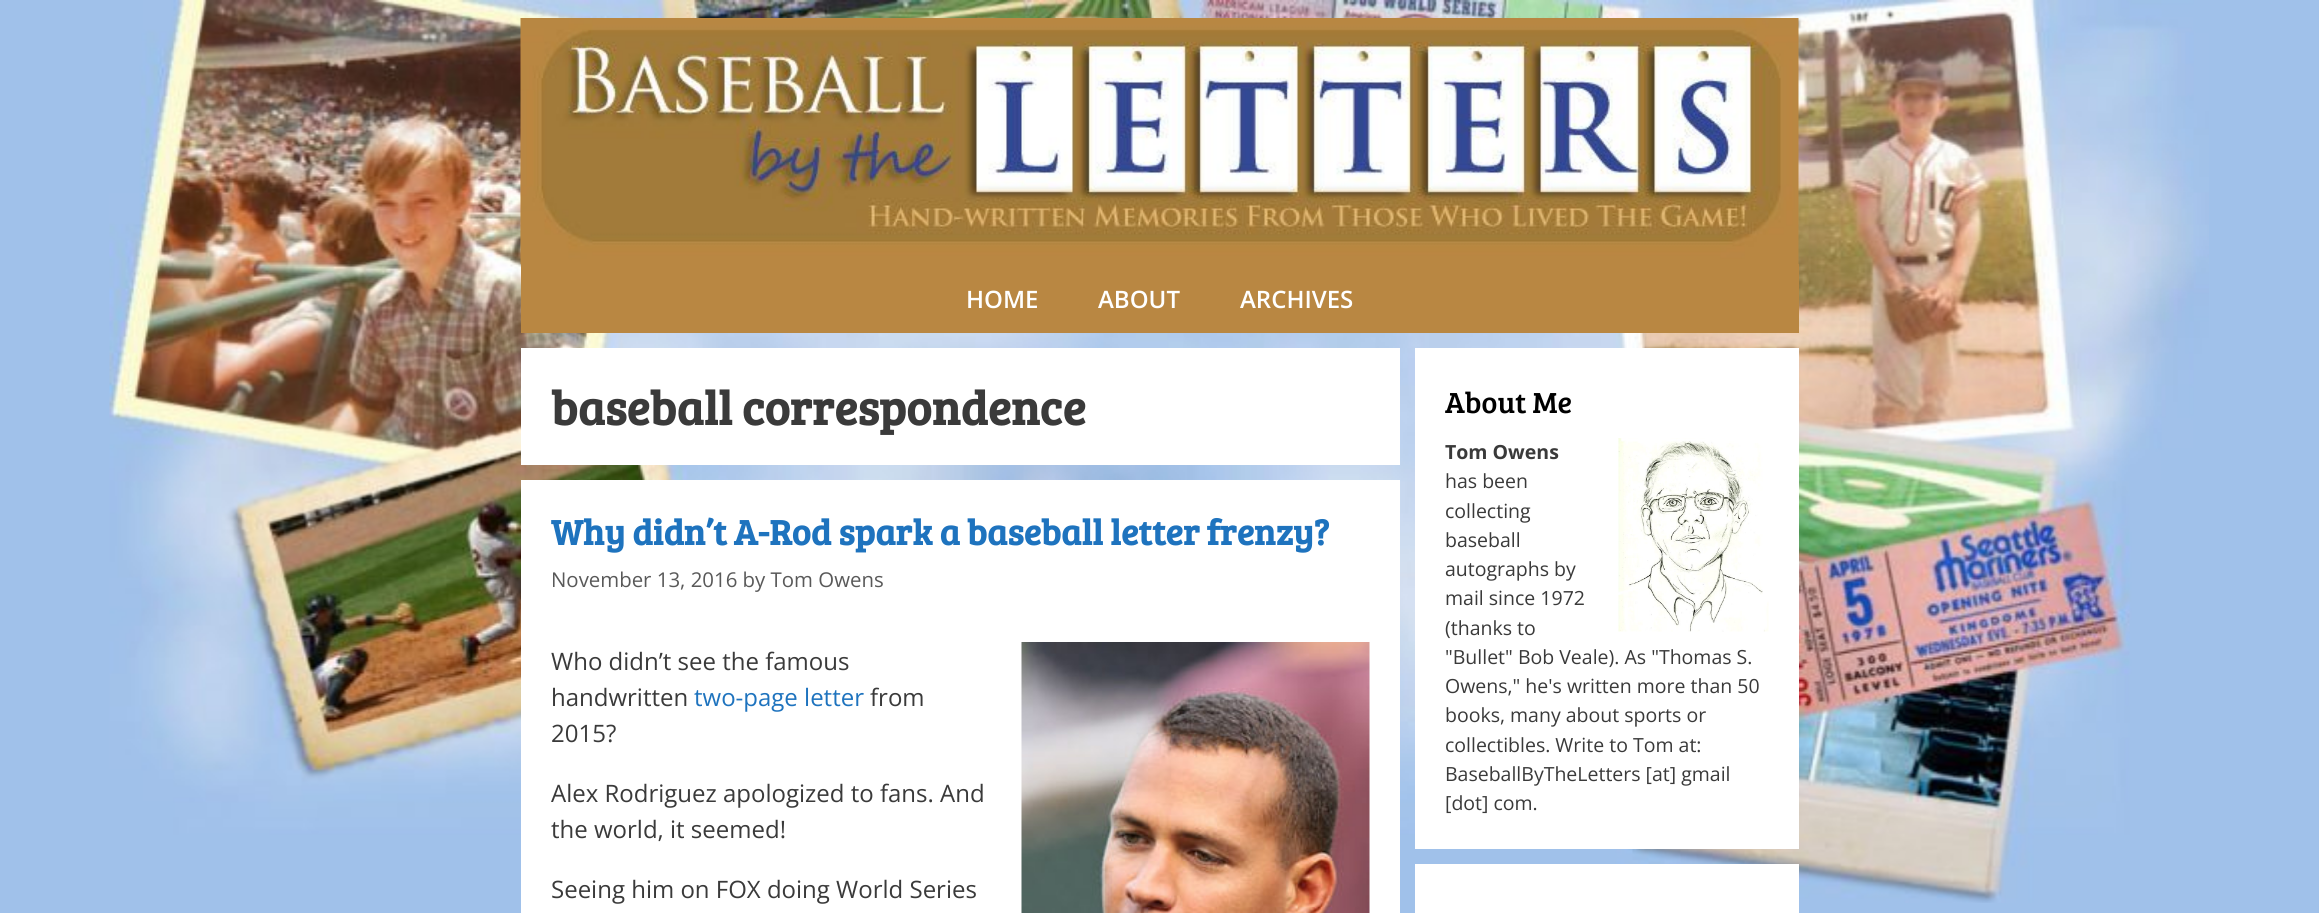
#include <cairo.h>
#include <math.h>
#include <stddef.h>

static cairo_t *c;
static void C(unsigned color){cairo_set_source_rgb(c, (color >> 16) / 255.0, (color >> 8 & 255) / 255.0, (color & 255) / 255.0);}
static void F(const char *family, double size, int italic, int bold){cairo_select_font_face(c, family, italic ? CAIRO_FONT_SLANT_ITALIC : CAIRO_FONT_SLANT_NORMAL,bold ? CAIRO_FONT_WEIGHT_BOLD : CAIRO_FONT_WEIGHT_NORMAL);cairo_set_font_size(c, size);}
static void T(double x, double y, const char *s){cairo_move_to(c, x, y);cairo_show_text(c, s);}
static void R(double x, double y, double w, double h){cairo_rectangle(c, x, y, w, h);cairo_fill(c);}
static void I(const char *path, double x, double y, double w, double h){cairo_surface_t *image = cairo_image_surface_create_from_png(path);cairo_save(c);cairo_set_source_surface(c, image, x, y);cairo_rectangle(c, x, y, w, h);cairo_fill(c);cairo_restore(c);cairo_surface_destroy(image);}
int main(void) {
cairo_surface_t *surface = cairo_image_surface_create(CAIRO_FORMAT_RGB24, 2319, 913);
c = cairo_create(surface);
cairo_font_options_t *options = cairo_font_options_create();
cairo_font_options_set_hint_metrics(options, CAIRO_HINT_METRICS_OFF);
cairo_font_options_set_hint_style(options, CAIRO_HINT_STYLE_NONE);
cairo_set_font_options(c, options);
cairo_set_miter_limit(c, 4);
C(0xa0c1ea);
cairo_paint(c);
I("1.png",109,0,2100,903);
I("2.png",520,18,1279,246);
C(0xb98742);
R(521,264,1278,69);
F("Open Sans SemiBold",24,0,0);
C(0xffffff);
T(966,308,"HOME");
T(1098,308,"ABOUT");
T(1240,308,"ARCHIVES");
R(521,348,879,117);
F("Bree Serif",48,0,1);
C(0x3a3a3a);
T(551,425,"baseball correspondence");
C(0xffffff);
R(521,480,879,433);
F("Bree Serif",36,0,1);
C(0x1e73be);
T(551,545,"Why didn’t A-Rod spark a baseball letter frenzy?");
F("Open Sans",20.4,0,0);
C(0x595959);
T(551,587,"November 13, 2016 by Tom Owens");
F("Open Sans",24,0,0);
C(0x3a3a3a);
T(551,670,"Who didn’t see the famous");
T(551,706,"handwritten");
C(0x1e73be);
T(694,706,"two-page letter");
C(0x3a3a3a);
T(870,706,"from");
T(551,742,"2015?");
I("3.png",1021,642,349,271);
T(551,802,"Alex Rodriguez apologized to fans. And");
T(551,838,"the world, it seemed!");
T(551,898,"Seeing him on FOX doing World Series");
C(0xffffff);
R(1415,348,384,501);
F("Bree Serif",30,0,0);
C(0x000000);
T(1445,413,"About Me");
F("Open Sans",19.5,0,1);
C(0x3a3a3a);
T(1445,459,"Tom Owens");
I("4.png",1618,438,151,194);
F("Open Sans",19.5,0,0);
T(1445,488,"has been");
T(1445,518,"collecting");
T(1445,547,"baseball");
T(1445,576,"autographs by");
T(1445,605,"mail since 1972");
T(1445,635,"(thanks to");
T(1445,664,"\"Bullet\" Bob Veale). As \"Thomas S.");
T(1445,693,"Owens,\" he's written more than 50");
T(1445,722,"books, many about sports or");
T(1445,752,"collectibles. Write to Tom at:");
T(1445,781,"BaseballByTheLetters [at] gmail");
T(1445,810,"[dot] com.");
C(0xffffff);
R(1415,864,384,49);
cairo_surface_write_to_png(surface, "o.png");
cairo_font_options_destroy(options);
cairo_destroy(c);
cairo_surface_destroy(surface);
return 0;
}
